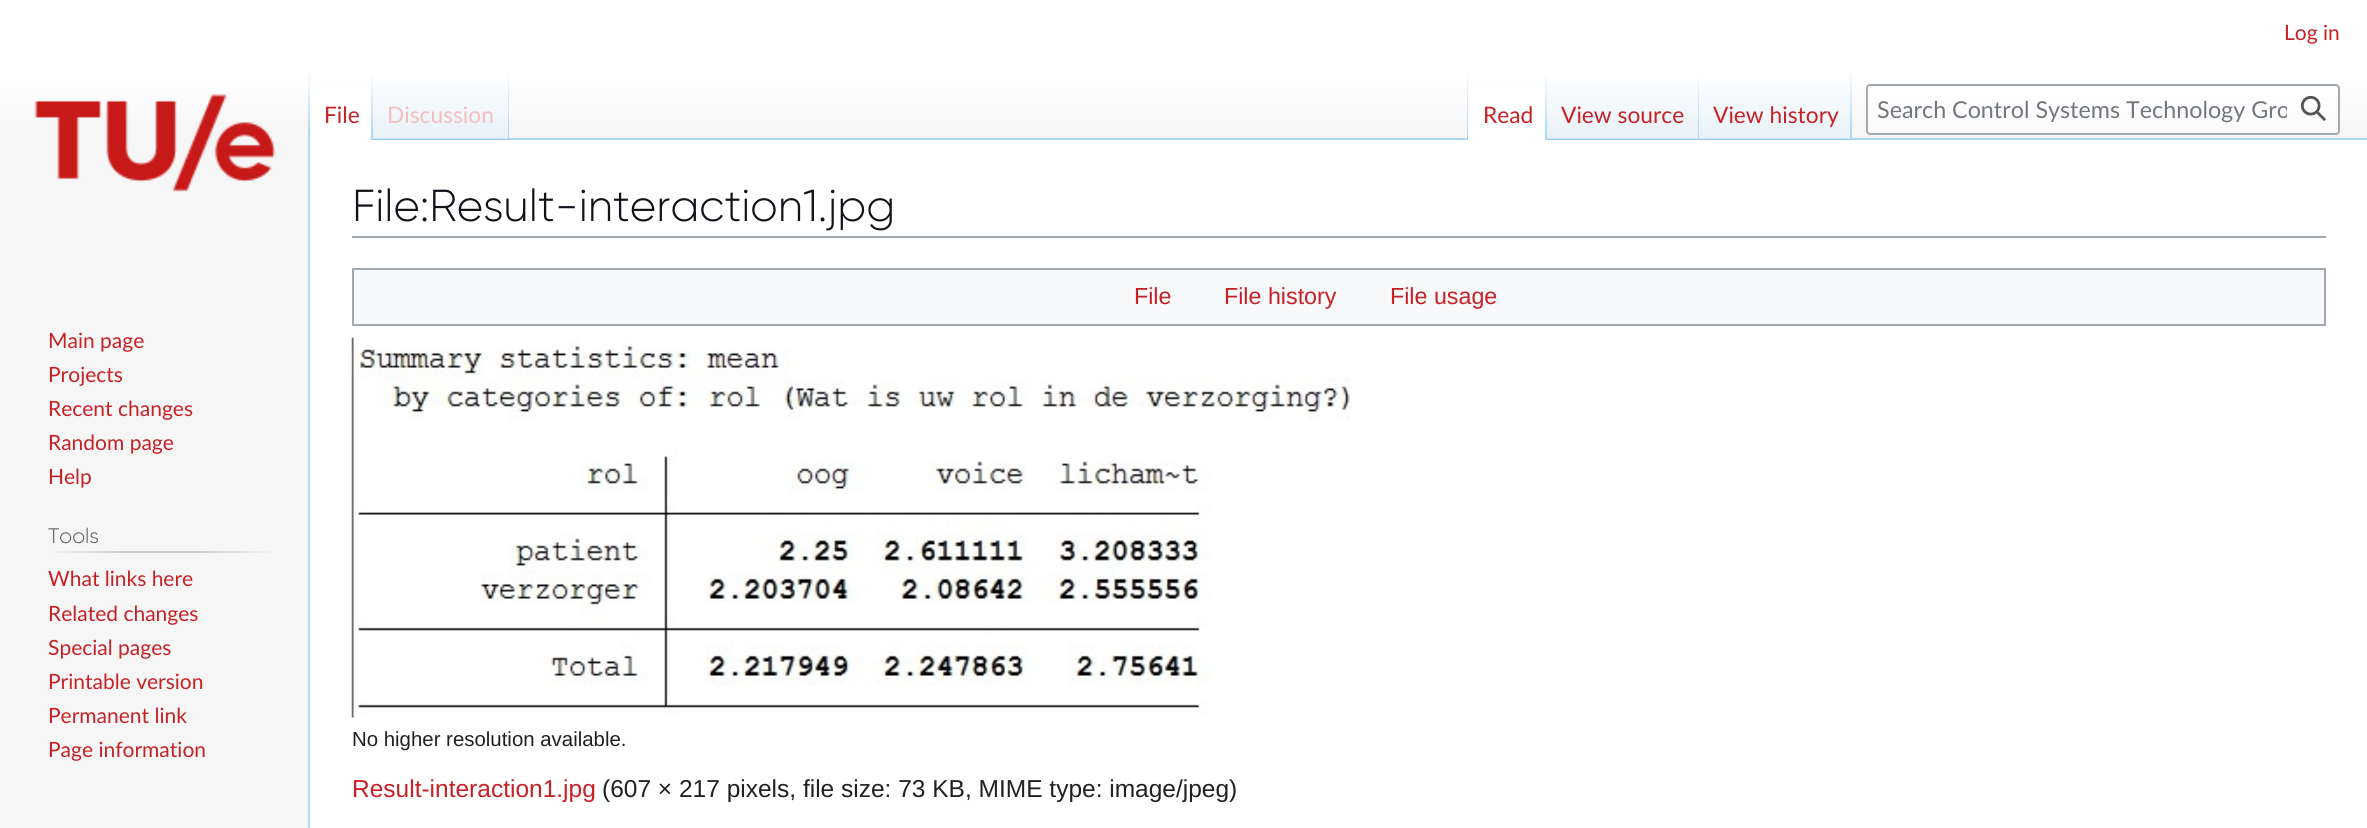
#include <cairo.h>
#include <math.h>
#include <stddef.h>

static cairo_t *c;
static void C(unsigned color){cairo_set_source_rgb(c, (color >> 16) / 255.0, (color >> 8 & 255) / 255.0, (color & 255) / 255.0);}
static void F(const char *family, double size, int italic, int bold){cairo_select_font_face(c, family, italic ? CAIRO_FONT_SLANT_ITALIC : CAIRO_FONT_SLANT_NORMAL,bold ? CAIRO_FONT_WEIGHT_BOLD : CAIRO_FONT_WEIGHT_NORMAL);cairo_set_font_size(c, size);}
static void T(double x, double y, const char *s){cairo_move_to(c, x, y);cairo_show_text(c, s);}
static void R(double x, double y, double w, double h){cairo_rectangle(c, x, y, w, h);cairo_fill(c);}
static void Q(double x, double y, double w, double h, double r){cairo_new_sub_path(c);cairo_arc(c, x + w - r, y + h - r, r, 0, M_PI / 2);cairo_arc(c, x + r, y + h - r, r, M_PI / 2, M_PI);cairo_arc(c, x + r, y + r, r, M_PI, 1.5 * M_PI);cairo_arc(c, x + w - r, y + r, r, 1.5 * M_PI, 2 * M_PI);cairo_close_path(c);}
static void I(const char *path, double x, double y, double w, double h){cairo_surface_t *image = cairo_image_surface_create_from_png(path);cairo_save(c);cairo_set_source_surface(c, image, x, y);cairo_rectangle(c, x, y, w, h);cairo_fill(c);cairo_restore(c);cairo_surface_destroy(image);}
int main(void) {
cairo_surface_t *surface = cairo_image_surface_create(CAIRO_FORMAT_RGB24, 2367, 828);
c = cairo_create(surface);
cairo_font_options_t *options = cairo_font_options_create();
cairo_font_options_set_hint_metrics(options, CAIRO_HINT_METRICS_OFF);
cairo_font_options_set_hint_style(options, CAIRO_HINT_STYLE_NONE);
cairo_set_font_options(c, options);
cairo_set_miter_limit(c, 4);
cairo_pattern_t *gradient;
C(0xf6f6f6);
cairo_paint(c);
gradient = cairo_pattern_create_linear(1184,0,1184,140);
cairo_pattern_add_color_stop_rgba(gradient,.5,1,1,1,1);
cairo_pattern_add_color_stop_rgba(gradient,1,0.965,0.965,0.965,1);
cairo_set_source(c,gradient);
cairo_pattern_destroy(gradient);
R(0,0,2367,121);
F("Lato",21,0,0);
C(0xc72125);
T(2284,40,"Log in");
C(0xa7d7f9);
R(308,138,2,690);
gradient = cairo_pattern_create_linear(309,70,309,140);
cairo_pattern_add_color_stop_rgba(gradient,0,0.655,0.843,0.976,0);
cairo_pattern_add_color_stop_rgba(gradient,1,0.655,0.843,0.976,1);
cairo_set_source(c,gradient);
cairo_pattern_destroy(gradient);
R(308,70,2,70);
C(0xffffff);
R(310,89,61,51);
gradient = cairo_pattern_create_linear(372,70,372,140);
cairo_pattern_add_color_stop_rgba(gradient,0,1,1,1,1);
cairo_pattern_add_color_stop_rgba(gradient,1,0.655,0.843,0.976,1);
cairo_set_source(c,gradient);
cairo_pattern_destroy(gradient);
R(371,70,2,70);
F("Lato",22.75,0,0);
C(0xc72125);
T(324,123,"File");
gradient = cairo_pattern_create_linear(441,140,441,70);
cairo_pattern_add_color_stop_rgba(gradient,0,0.467,0.757,0.965,1);
cairo_pattern_add_color_stop_rgba(gradient,.03,0.91,0.949,0.973,1);
cairo_pattern_add_color_stop_rgba(gradient,1,1,1,1,1);
cairo_set_source(c,gradient);
cairo_pattern_destroy(gradient);
R(373,80,136,60);
gradient = cairo_pattern_create_linear(508,70,508,140);
cairo_pattern_add_color_stop_rgba(gradient,0,0.655,0.843,0.976,0);
cairo_pattern_add_color_stop_rgba(gradient,1,0.655,0.843,0.976,1);
cairo_set_source(c,gradient);
cairo_pattern_destroy(gradient);
R(508,70,1,70);
C(0xf5bdbf);
T(387,123,"Discussion");
C(0xa7d7f9);
R(509,138,1858,2);
gradient = cairo_pattern_create_linear(1467,70,1467,140);
cairo_pattern_add_color_stop_rgba(gradient,0,0.655,0.843,0.976,0);
cairo_pattern_add_color_stop_rgba(gradient,1,0.655,0.843,0.976,1);
cairo_set_source(c,gradient);
cairo_pattern_destroy(gradient);
R(1467,70,1,70);
C(0xffffff);
R(1468,89,77,51);
gradient = cairo_pattern_create_linear(1546,70,1546,140);
cairo_pattern_add_color_stop_rgba(gradient,0,1,1,1,1);
cairo_pattern_add_color_stop_rgba(gradient,1,0.655,0.843,0.976,1);
cairo_set_source(c,gradient);
cairo_pattern_destroy(gradient);
R(1545,70,2,70);
C(0xc72125);
T(1483,123,"Read");
gradient = cairo_pattern_create_linear(1623,140,1623,70);
cairo_pattern_add_color_stop_rgba(gradient,0,0.467,0.757,0.965,1);
cairo_pattern_add_color_stop_rgba(gradient,.03,0.91,0.949,0.973,1);
cairo_pattern_add_color_stop_rgba(gradient,1,1,1,1,1);
cairo_set_source(c,gradient);
cairo_pattern_destroy(gradient);
R(1547,80,152,60);
gradient = cairo_pattern_create_linear(1698,70,1698,140);
cairo_pattern_add_color_stop_rgba(gradient,0,0.655,0.843,0.976,0);
cairo_pattern_add_color_stop_rgba(gradient,1,0.655,0.843,0.976,1);
cairo_set_source(c,gradient);
cairo_pattern_destroy(gradient);
R(1698,70,1,70);
C(0xc72125);
T(1561,123,"View source");
gradient = cairo_pattern_create_linear(1775,140,1775,70);
cairo_pattern_add_color_stop_rgba(gradient,0,0.467,0.757,0.965,1);
cairo_pattern_add_color_stop_rgba(gradient,.03,0.91,0.949,0.973,1);
cairo_pattern_add_color_stop_rgba(gradient,1,1,1,1,1);
cairo_set_source(c,gradient);
cairo_pattern_destroy(gradient);
R(1699,80,153,60);
gradient = cairo_pattern_create_linear(1851,70,1851,140);
cairo_pattern_add_color_stop_rgba(gradient,0,0.655,0.843,0.976,0);
cairo_pattern_add_color_stop_rgba(gradient,1,0.655,0.843,0.976,1);
cairo_set_source(c,gradient);
cairo_pattern_destroy(gradient);
R(1850,70,2,70);
C(0xc72125);
T(1713,123,"View history");
cairo_set_source_rgba(c,1,1,1,0.5);
Q(1867,85,472,49,3);
cairo_fill_preserve(c);
C(0xa2a9b1);
cairo_stroke(c);
cairo_save(c);
cairo_rectangle(c,1878,95,409,28);
cairo_clip(c);
F("Lato",23.3,0,0);
C(0x72777d);
T(1877,118,"Search Control Systems Technology Gro");
cairo_restore(c);
I("1.png",2300,95,26,26);
I("2.png",34,94,242,98);
F("Lato",21,0,0);
C(0xc72125);
T(48,348,"Main page");
T(48,382,"Projects");
T(48,416,"Recent changes");
T(48,450,"Random page");
T(48,484,"Help");
gradient = cairo_pattern_create_linear(47,552,277,552);
cairo_pattern_add_color_stop_rgba(gradient,0,0.965,0.965,0.965,1);
cairo_pattern_add_color_stop_rgba(gradient,.33,0.784,0.8,0.82,1);
cairo_pattern_add_color_stop_rgba(gradient,.66,0.784,0.8,0.82,1);
cairo_pattern_add_color_stop_rgba(gradient,1,0.965,0.965,0.965,1);
cairo_set_source(c,gradient);
cairo_pattern_destroy(gradient);
R(47,551,230,2);
F("Gilroy Light",21,0,0);
C(0x54595d);
T(48,543,"Tools");
F("Lato",21,0,0);
C(0xc72125);
T(48,586,"What links here");
T(48,621,"Related changes");
T(48,655,"Special pages");
T(48,689,"Printable version");
T(48,723,"Permanent link");
T(48,757,"Page information");
C(0xffffff);
R(310,140,2057,688);
C(0xa2a9b1);
R(352,236,1974,2);
F("Gilroy Light",44.75,0,0);
C(0x101418);
T(352,221,"File:Result-interaction1.jpg");
C(0xf8f9fa);
cairo_rectangle(c,353,269,1972,56);
cairo_fill_preserve(c);
C(0xa2a9b1);
cairo_stroke(c);
F("Liberation Sans",23.25,0,0);
C(0xc72125);
T(1134,304,"File");
T(1224,304,"File history");
T(1390,304,"File usage");
I("3.png",351,337,1000,381);
F("Liberation Sans",20.4,0,0);
C(0x202122);
T(352,746,"No higher resolution available.");
F("Liberation Sans",24.5,0,0);
C(0xc72125);
T(352,797,"Result-interaction1.jpg");
C(0x202122);
T(602,797,"(607 × 217 pixels, file size: 73 KB, MIME type: image/jpeg)");
cairo_surface_write_to_png(surface, "o.png");
cairo_font_options_destroy(options);
cairo_destroy(c);
cairo_surface_destroy(surface);
return 0;
}
